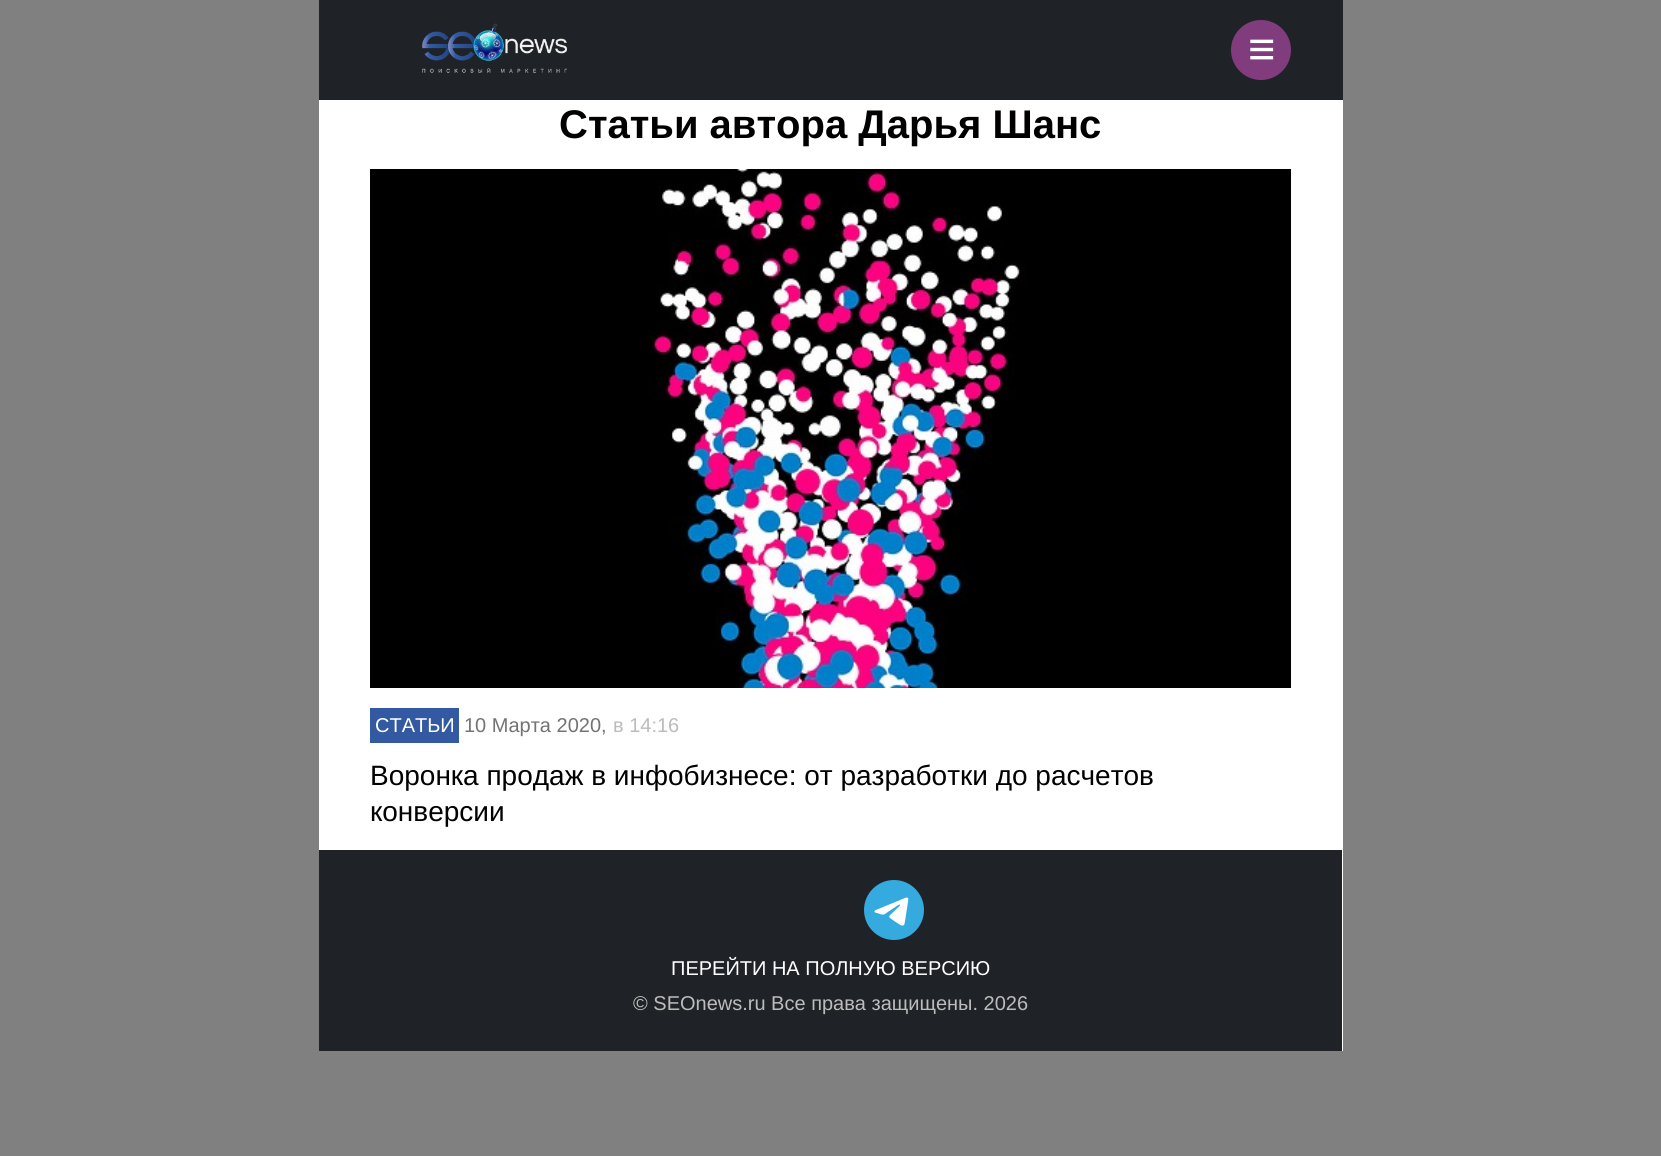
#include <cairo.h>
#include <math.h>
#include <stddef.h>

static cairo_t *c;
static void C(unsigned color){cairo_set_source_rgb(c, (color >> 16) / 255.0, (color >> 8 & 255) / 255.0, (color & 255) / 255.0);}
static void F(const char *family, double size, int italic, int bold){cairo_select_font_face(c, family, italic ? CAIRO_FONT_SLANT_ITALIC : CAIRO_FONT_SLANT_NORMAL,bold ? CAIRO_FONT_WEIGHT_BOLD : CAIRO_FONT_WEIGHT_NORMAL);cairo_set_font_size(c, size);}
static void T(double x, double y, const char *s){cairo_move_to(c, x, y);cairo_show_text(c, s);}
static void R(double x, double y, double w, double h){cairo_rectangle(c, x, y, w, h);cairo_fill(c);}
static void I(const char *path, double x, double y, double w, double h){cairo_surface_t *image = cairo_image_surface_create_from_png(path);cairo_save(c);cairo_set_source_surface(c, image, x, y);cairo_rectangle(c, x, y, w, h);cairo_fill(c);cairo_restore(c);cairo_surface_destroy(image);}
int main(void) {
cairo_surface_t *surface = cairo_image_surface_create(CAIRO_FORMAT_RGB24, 1661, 1156);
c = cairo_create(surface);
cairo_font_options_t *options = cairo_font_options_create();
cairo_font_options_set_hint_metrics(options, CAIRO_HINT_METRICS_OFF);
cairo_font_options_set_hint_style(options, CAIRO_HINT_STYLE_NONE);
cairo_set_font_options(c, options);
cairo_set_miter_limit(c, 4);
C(0x808080);
cairo_paint(c);
C(0xffffff);
R(319,100,1024,951);
C(0x1f2226);
R(319,0,1024,100);
I("1.png",422,23,145,50);
C(0x813c7e);
cairo_arc(c,1261,50,30,0,2 * M_PI);
cairo_fill(c);
F("Liberation Sans",47,0,0);
C(0xffffff);
T(1248,65,"≡");
F("Liberation Sans",40,0,1);
C(0x000000);
T(559,138,"Статьи автора Дарья Шанс");
I("2.png",370,169,921,519);
C(0x3359a3);
R(370,708,89,35);
F("Liberation Sans",20,0,0);
C(0xffffff);
T(375,732,"СТАТЬИ");
C(0x737373);
T(464,732,"10 Марта 2020,");
C(0xbcbcbc);
T(613,732,"в 14:16");
F("Liberation Sans",28,0,0);
C(0x000000);
T(370,785,"Воронка продаж в инфобизнесе: от разработки до расчетов");
T(370,821,"конверсии");
C(0x1f2226);
R(319,850,1023,201);
I("3.png",864,880,60,60);
F("Liberation Sans",20,0,0);
C(0xffffff);
T(671,975,"ПЕРЕЙТИ НА ПОЛНУЮ ВЕРСИЮ");
C(0xbcbcbc);
T(633,1010,"© SEOnews.ru Все права защищены. 2026");
cairo_surface_write_to_png(surface, "o.png");
cairo_font_options_destroy(options);
cairo_destroy(c);
cairo_surface_destroy(surface);
return 0;
}
